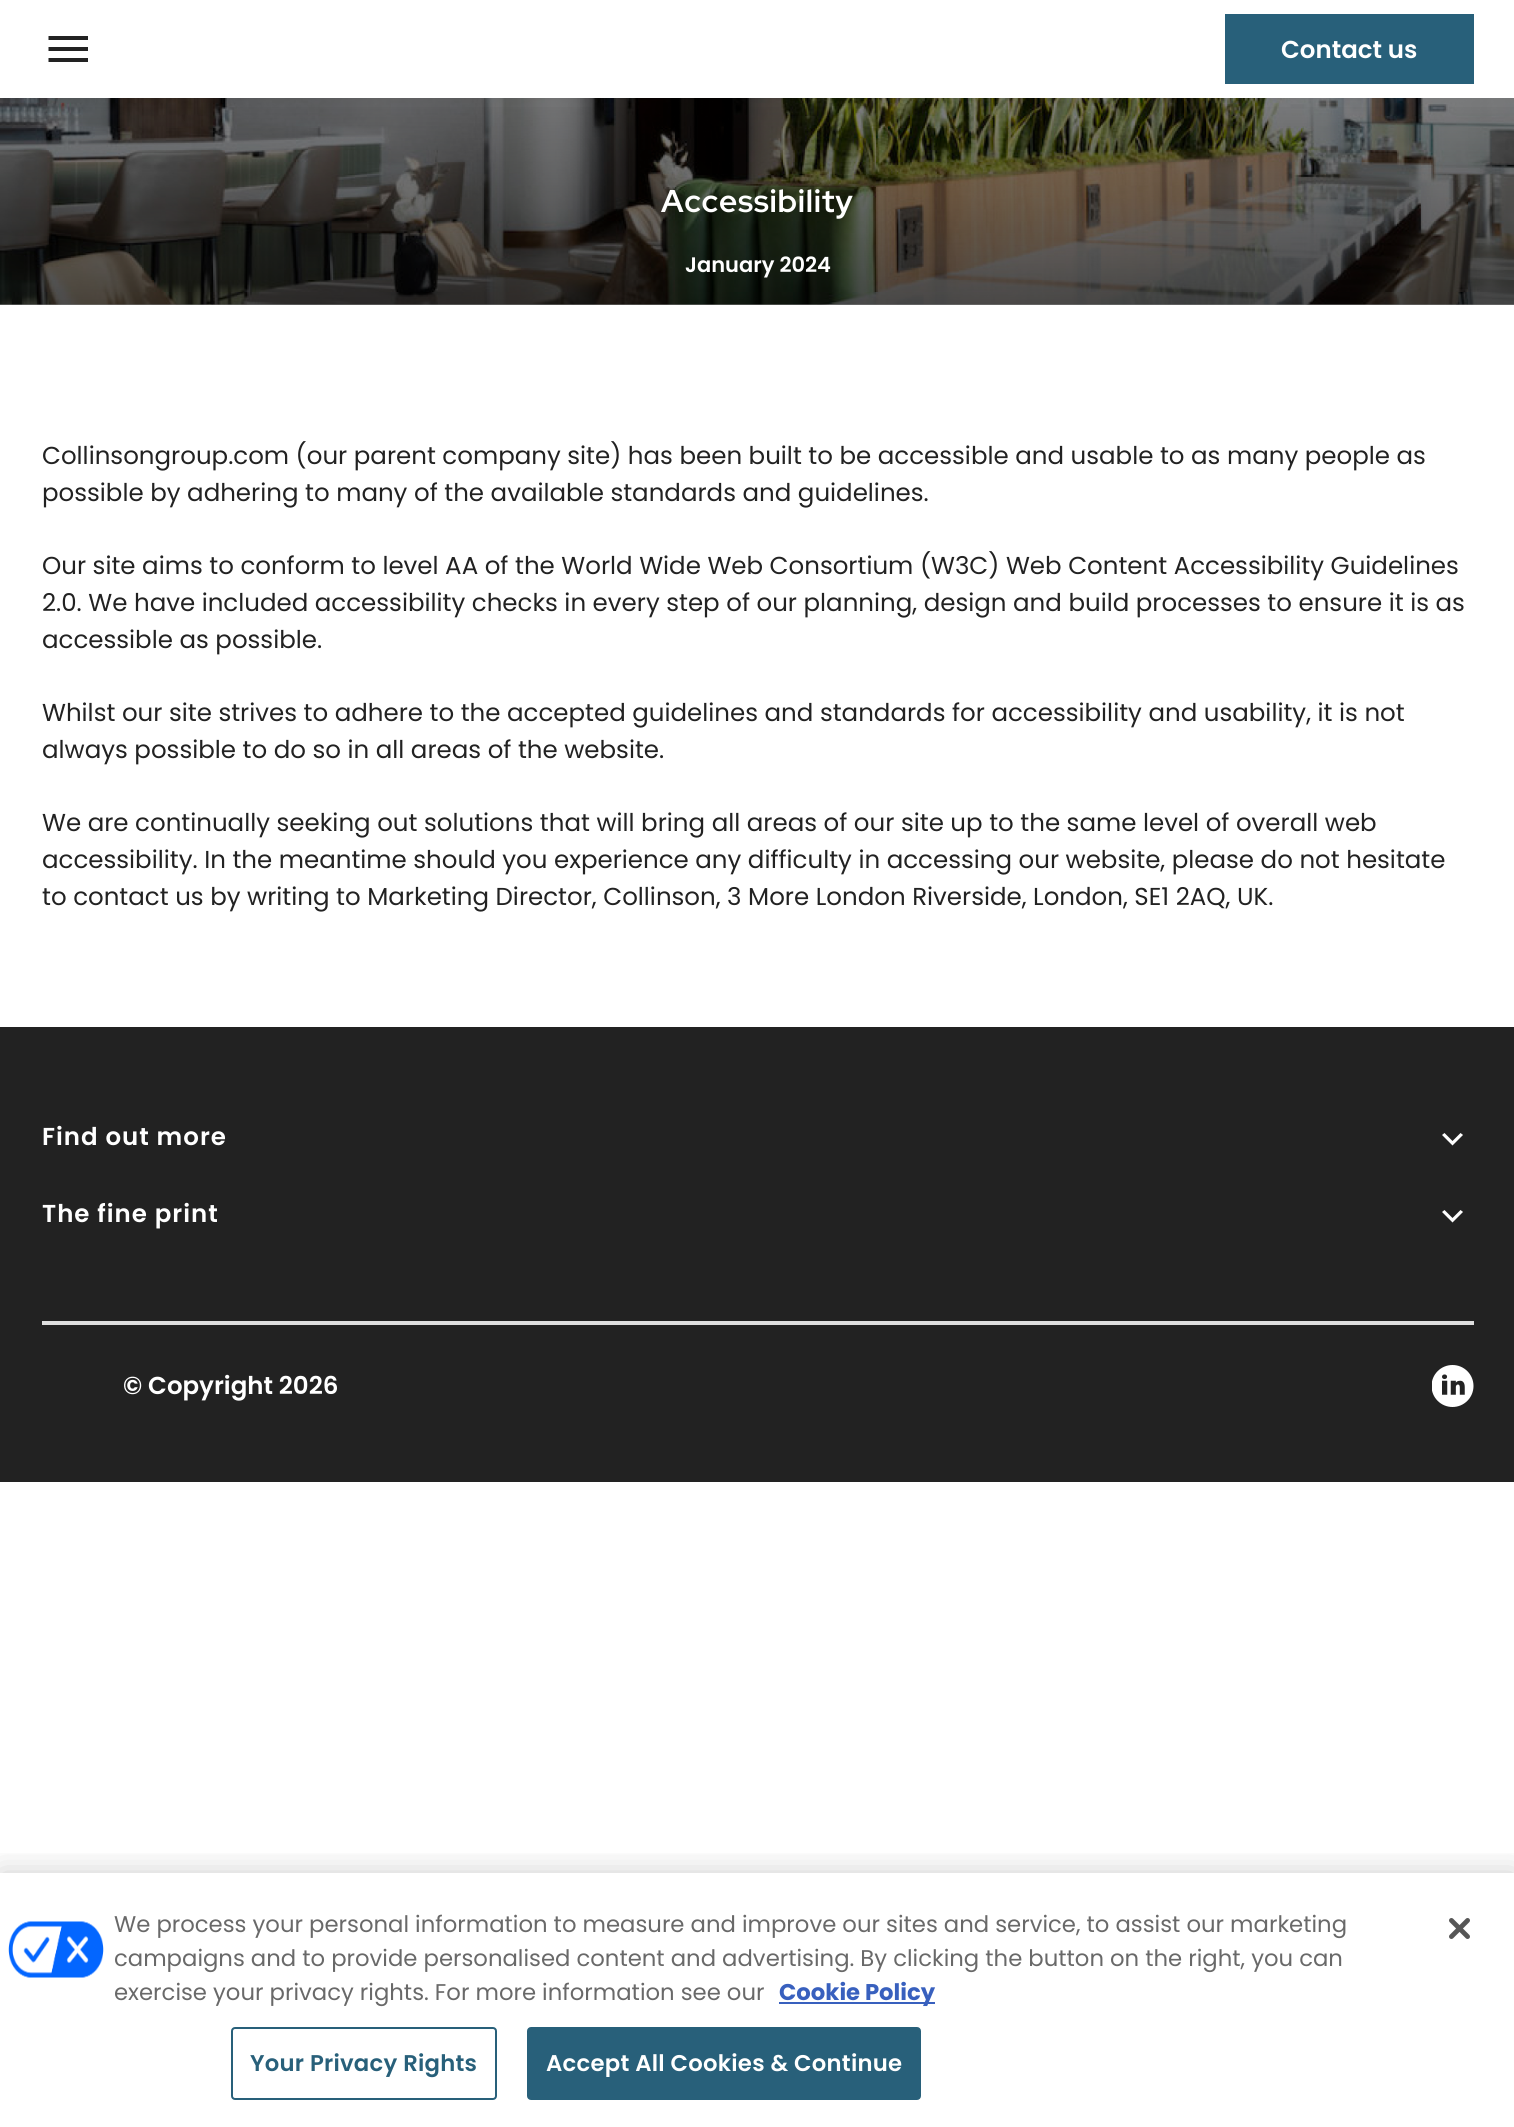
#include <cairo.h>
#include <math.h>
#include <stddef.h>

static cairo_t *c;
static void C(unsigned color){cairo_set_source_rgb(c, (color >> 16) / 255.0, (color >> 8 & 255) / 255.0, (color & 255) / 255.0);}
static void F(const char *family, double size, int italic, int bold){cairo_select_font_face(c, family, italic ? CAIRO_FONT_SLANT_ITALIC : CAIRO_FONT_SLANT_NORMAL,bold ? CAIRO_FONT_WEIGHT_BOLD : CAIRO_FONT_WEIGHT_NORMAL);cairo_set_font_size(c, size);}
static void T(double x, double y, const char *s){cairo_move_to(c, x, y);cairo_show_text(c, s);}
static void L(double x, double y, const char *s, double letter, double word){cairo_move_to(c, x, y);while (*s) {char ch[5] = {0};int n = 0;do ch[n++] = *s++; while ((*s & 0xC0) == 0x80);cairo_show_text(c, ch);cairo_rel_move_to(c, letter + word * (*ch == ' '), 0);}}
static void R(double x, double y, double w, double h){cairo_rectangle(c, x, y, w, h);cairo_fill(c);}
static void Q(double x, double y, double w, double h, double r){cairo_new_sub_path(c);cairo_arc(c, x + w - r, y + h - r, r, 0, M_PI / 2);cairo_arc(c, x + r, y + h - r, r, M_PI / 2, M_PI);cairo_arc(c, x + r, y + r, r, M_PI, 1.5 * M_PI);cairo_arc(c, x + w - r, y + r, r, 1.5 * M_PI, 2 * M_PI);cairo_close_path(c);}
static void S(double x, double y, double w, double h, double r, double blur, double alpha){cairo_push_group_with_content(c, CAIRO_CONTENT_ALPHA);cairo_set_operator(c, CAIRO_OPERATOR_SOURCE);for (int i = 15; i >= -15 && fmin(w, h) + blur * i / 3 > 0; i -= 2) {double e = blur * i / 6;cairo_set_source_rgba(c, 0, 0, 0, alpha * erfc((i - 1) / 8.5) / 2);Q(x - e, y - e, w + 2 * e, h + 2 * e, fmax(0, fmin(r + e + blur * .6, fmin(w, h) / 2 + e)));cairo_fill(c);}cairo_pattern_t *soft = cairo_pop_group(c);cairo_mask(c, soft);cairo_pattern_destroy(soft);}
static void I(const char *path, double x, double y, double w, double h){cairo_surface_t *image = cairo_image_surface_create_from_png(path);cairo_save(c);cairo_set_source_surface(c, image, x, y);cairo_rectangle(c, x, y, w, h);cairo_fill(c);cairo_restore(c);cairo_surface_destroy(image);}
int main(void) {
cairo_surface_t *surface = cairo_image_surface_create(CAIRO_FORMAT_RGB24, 1514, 2127);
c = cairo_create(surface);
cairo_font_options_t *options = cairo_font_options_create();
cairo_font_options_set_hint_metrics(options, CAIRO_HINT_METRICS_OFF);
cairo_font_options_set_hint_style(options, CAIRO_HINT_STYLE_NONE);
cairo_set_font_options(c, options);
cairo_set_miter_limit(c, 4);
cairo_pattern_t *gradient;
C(0xffffff);
cairo_paint(c);
C(0x222222);
cairo_new_path(c);
cairo_move_to(c,48.5,62);
cairo_line_to(c,88,62);
cairo_line_to(c,88,58);
cairo_line_to(c,48.5,58);
cairo_close_path(c);
cairo_move_to(c,48.5,51);
cairo_line_to(c,88,51);
cairo_line_to(c,88,47);
cairo_line_to(c,48.5,47);
cairo_close_path(c);
cairo_move_to(c,48.5,36);
cairo_line_to(c,48.5,40);
cairo_line_to(c,88,40);
cairo_line_to(c,88,36);
cairo_close_path(c);
cairo_fill(c);
C(0x28607a);
R(1225,14,249,70);
F("Poppins SemiBold",24.5,0,0);
C(0xffffff);
T(1281,58,"Contact us");
I("1.png",0,98,1514,207);
gradient = cairo_pattern_create_linear(758,98,758,305);
cairo_pattern_add_color_stop_rgba(gradient,0,0,0,0,0);
cairo_pattern_add_color_stop_rgba(gradient,1,0,0,0,.5);
cairo_set_source(c,gradient);
cairo_pattern_destroy(gradient);
R(0,107,1514,198);
F("Red Hat Display",31.5,0,1);
C(0xffffff);
L(661,212,"Accessibility",.75,0);
F("Poppins SemiBold",21,0,0);
T(685,272,"January 2024");
F("Poppins",24.5,0,0);
C(0x222222);
T(42,464,"Collinsongroup.com (our parent company site) has been built to be accessible and usable to as many people as");
T(42,501,"possible by adhering to many of the available standards and guidelines.");
T(42,574,"Our site aims to conform to level AA of the World Wide Web Consortium (W3C) Web Content Accessibility Guidelines");
T(42,611,"2.0. We have included accessibility checks in every step of our planning, design and build processes to ensure it is as");
T(42,648,"accessible as possible.");
T(42,721,"Whilst our site strives to adhere to the accepted guidelines and standards for accessibility and usability, it is not");
T(42,758,"always possible to do so in all areas of the website.");
T(42,831,"We are continually seeking out solutions that will bring all areas of our site up to the same level of overall web");
T(42,868,"accessibility. In the meantime should you experience any difficulty in accessing our website, please do not hesitate");
T(42,905,"to contact us by writing to Marketing Director, Collinson, 3 More London Riverside, London, SE1 2AQ, UK.");
R(0,1027,1514,455);
F("Poppins SemiBold",24.5,0,0);
C(0xffffff);
L(42,1145,"Find out more",1,0);
cairo_new_path(c);
cairo_move_to(c,1444.5,1133);
cairo_line_to(c,1452.5,1141);
cairo_line_to(c,1460.5,1133);
cairo_line_to(c,1463,1135);
cairo_line_to(c,1452.5,1145.5);
cairo_line_to(c,1442,1135);
cairo_close_path(c);
cairo_fill(c);
L(42,1222,"The fine print",1,0);
cairo_new_path(c);
cairo_move_to(c,1444.5,1210);
cairo_line_to(c,1452.5,1218);
cairo_line_to(c,1460.5,1210);
cairo_line_to(c,1463,1212);
cairo_line_to(c,1452.5,1222.5);
cairo_line_to(c,1442,1212);
cairo_close_path(c);
cairo_fill(c);
C(0xdfdfdf);
R(42,1321,1432,4);
C(0xffffff);
T(123,1394,"© Copyright 2026");
I("2.png",1432,1365,42,42);
cairo_save(c);
cairo_rectangle(c,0,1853,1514,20);
cairo_clip(c);
C(0x000000);
S(0,1873,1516,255,0,16,.2);
cairo_restore(c);
I("3.png",8,1921,96,57);
F("Poppins",22.75,0,0);
C(0x696969);
T(114,1932,"We process your personal information to measure and improve our sites and service, to assist our marketing");
T(114,1966,"campaigns and to provide personalised content and advertising. By clicking the button on the right, you can");
T(114,2000,"exercise your privacy rights. For more information see our");
C(0x3860be);
R(779,2002,156,2);
F("Poppins",22.75,0,1);
T(779,2000,"Cookie Policy");
Q(232,2028,264,71,3);
C(0x28607a);
cairo_stroke(c);
F("Poppins SemiBold",22.75,0,0);
L(250,2071,"Your Privacy Rights",.25,0);
Q(528,2028,392,71,3);
cairo_fill_preserve(c);
cairo_stroke(c);
C(0xffffff);
L(546,2071,"Accept All Cookies & Continue",.25,0);
I("4.png",1449,1918,21,21);
cairo_surface_write_to_png(surface, "o.png");
cairo_font_options_destroy(options);
cairo_destroy(c);
cairo_surface_destroy(surface);
return 0;
}
